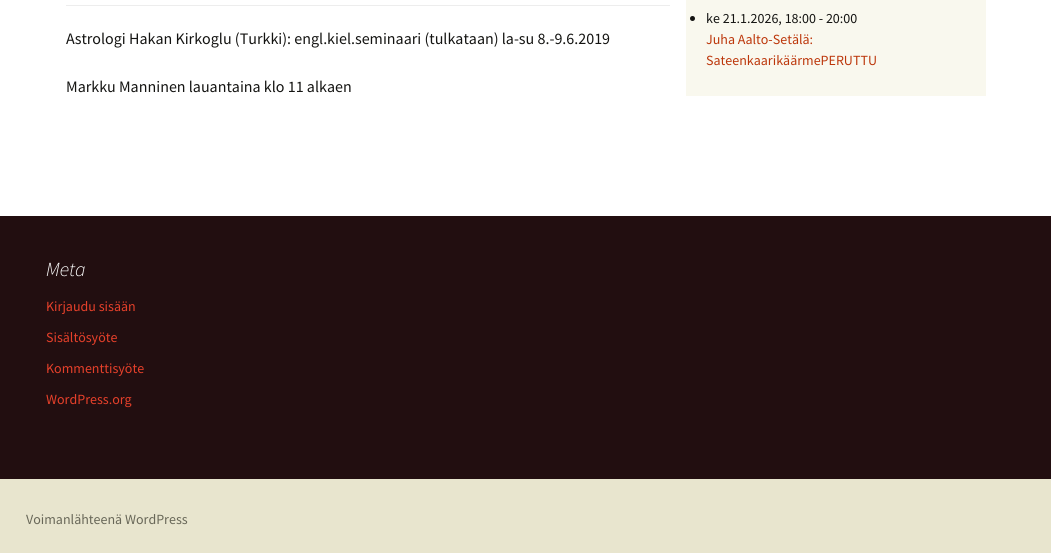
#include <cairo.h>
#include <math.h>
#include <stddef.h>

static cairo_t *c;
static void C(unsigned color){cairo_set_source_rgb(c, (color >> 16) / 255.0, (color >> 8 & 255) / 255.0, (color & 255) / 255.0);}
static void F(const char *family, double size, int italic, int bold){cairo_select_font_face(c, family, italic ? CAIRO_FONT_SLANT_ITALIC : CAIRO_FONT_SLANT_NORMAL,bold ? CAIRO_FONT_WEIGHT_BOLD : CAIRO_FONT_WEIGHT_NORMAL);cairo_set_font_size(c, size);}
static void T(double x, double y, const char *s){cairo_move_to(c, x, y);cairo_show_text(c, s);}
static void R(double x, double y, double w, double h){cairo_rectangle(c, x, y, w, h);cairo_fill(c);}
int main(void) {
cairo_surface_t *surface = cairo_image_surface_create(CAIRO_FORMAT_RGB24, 1051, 553);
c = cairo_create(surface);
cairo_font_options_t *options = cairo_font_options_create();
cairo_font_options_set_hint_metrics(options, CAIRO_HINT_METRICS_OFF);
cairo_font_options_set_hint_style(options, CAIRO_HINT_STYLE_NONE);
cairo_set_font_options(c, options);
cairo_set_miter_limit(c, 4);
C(0xffffff);
cairo_paint(c);
C(0xededed);
R(66,5,604,1);
F("Source Sans Pro",16,0,0);
C(0x141412);
T(66,44,"Astrologi Hakan Kirkoglu (Turkki): engl.kiel.seminaari (tulkataan) la-su 8.-9.6.2019");
T(66,92,"Markku Manninen lauantaina klo 11 alkaen");
C(0xf9f8ee);
R(686,0,300,96);
C(0x141412);
cairo_new_path(c);
cairo_arc(c,692.5,18.5,2.5,0,2 * M_PI);
cairo_fill(c);
F("Source Sans Pro",14,0,0);
T(706,23,"ke 21.1.2026, 18:00 - 20:00");
C(0xbc360a);
T(706,44,"Juha Aalto-Setälä:");
T(706,65,"SateenkaarikäärmePERUTTU");
C(0xe8e5ce);
R(0,479,1051,74);
C(0x220e10);
R(0,216,1051,263);
F("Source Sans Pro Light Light",20,1,0);
C(0xffffff);
T(46,276,"Meta");
F("Source Sans Pro",14,0,0);
C(0xe6402a);
T(46,311,"Kirjaudu sisään");
T(46,342,"Sisältösyöte");
T(46,373,"Kommenttisyöte");
T(46,404,"WordPress.org");
C(0x686758);
T(26,524,"Voimanlähteenä WordPress");
cairo_surface_write_to_png(surface, "o.png");
cairo_font_options_destroy(options);
cairo_destroy(c);
cairo_surface_destroy(surface);
return 0;
}
